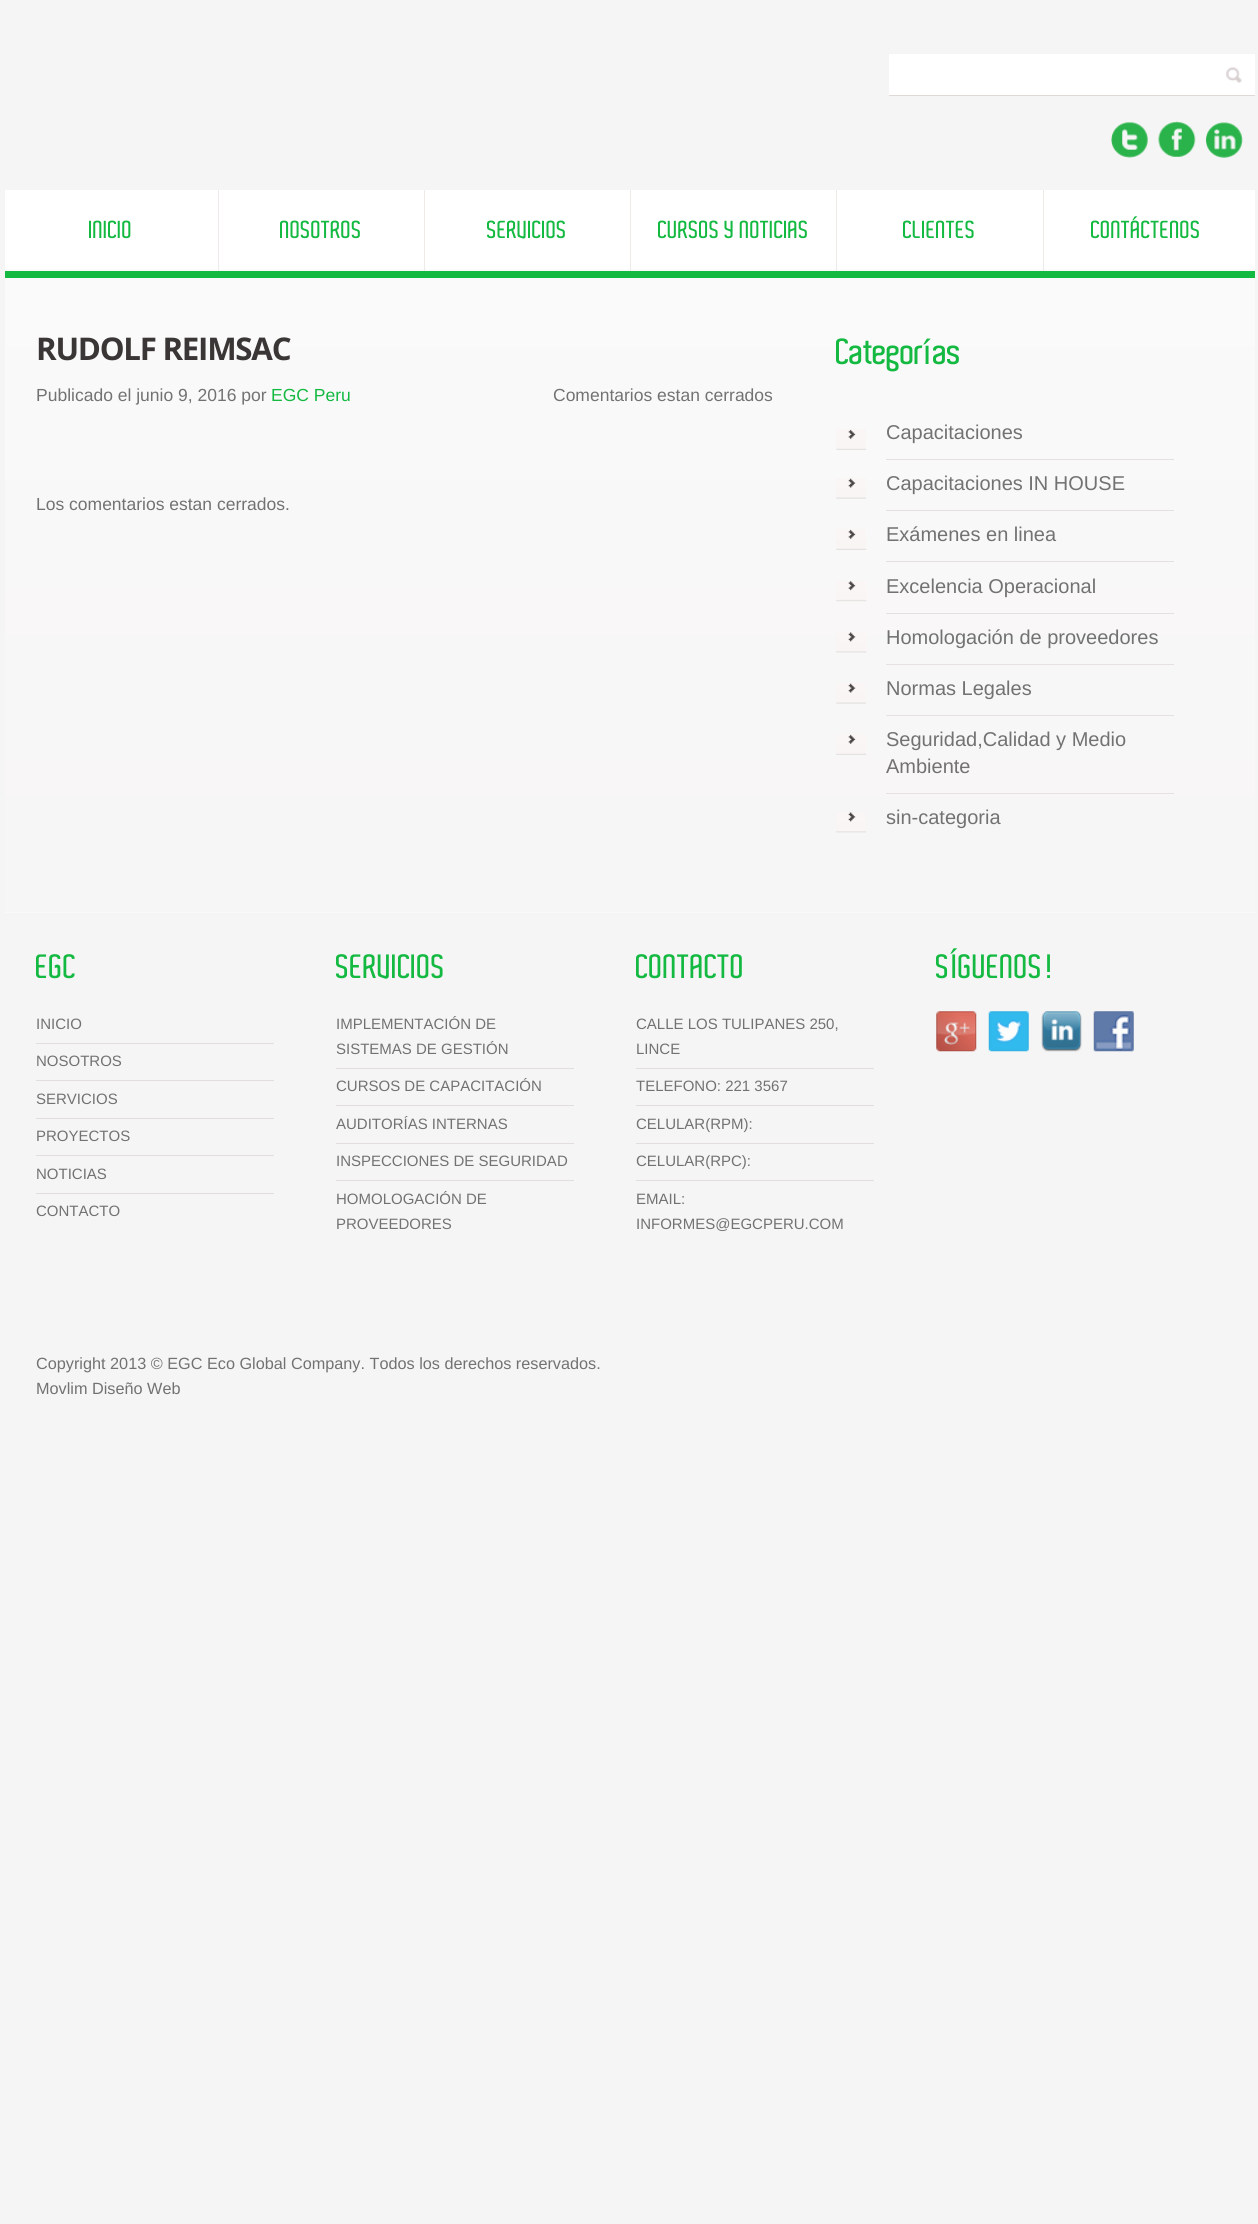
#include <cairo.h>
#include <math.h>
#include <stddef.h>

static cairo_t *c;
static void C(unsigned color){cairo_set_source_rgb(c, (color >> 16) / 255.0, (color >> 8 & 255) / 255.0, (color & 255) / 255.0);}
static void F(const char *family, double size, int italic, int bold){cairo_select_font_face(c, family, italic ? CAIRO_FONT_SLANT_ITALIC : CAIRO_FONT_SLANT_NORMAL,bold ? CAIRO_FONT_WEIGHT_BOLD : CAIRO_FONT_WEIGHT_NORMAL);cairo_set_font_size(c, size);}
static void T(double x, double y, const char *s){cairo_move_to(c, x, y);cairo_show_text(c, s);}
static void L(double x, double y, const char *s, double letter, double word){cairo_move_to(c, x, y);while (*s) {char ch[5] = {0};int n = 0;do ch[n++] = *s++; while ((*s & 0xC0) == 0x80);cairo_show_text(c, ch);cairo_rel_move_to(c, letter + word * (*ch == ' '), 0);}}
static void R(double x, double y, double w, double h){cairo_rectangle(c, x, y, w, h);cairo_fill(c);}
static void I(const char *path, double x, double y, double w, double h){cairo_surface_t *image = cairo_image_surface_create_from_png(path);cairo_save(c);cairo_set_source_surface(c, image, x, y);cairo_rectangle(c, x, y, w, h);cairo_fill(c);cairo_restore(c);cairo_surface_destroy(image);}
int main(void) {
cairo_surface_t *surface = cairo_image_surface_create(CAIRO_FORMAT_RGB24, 1258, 2224);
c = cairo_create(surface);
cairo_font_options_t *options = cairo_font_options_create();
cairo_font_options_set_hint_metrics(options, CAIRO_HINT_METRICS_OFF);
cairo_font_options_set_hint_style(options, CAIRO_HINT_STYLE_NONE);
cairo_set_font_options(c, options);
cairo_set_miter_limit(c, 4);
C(0xf5f5f5);
cairo_paint(c);
C(0xffffff);
R(889,54,366,41);
C(0xdfdad8);
R(889,95,366,1);
I("1.png",1226,67,16,16);
I("2.png",1111,122,37,36);
I("3.png",1158,121,38,36);
I("4.png",1206,122,37,36);
C(0xffffff);
R(5,190,1250,79);
R(5,912,1250,1);
I("5.png",5,269,1250,644);
C(0x13b941);
R(5,271,1250,7);
F("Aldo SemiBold",23.75,0,0);
T(89,238,"INICIO");
C(0xeeeae7);
R(218,190,1,81);
C(0x13b941);
T(280,238,"NOSOTROS");
C(0xeeeae7);
R(424,190,1,81);
C(0x13b941);
T(487,238,"SERVICIOS");
C(0xeeeae7);
R(630,190,1,81);
C(0x13b941);
T(658,238,"CURSOS Y NOTICIAS");
C(0xeeeae7);
R(836,190,1,81);
C(0x13b941);
T(903,238,"CLIENTES");
C(0xeeeae7);
R(1043,190,1,81);
C(0x13b941);
T(1091,238,"CONTÁCTENOS");
F("Open Sans",31.25,0,1);
C(0x3b3636);
L(36,360,"RUDOLF REIMSAC",-1.25,0);
F("Liberation Sans",17.5,0,0);
C(0x727272);
T(36,401,"Publicado el junio 9, 2016 por");
C(0x13b941);
T(271,401,"EGC Peru");
C(0x727272);
T(553,401,"Comentarios estan cerrados");
T(36,510,"Los comentarios estan cerrados.");
F("Aldo SemiBold",35,0,0);
C(0x13b941);
L(836,364,"Categorías",-1.25,0);
I("6.png",836,429,31,21);
F("Liberation Sans",20,0,0);
C(0x727272);
T(886,439,"Capacitaciones");
C(0xe5e1e1);
R(886,459,288,1);
I("7.png",836,478,30,21);
C(0x727272);
T(886,490,"Capacitaciones IN HOUSE");
C(0xe5e1e1);
R(886,510,288,1);
I("8.png",836,529,31,21);
C(0x727272);
T(886,541,"Exámenes en linea");
C(0xe5e1e1);
R(886,561,288,1);
I("9.png",836,581,31,21);
C(0x727272);
T(886,593,"Excelencia Operacional");
C(0xe5e1e1);
R(886,613,288,1);
I("10.png",836,632,31,21);
C(0x727272);
T(886,644,"Homologación de proveedores");
C(0xe5e1e1);
R(886,664,288,1);
I("11.png",836,683,30,21);
C(0x727272);
T(886,695,"Normas Legales");
C(0xe5e1e1);
R(886,715,288,1);
I("12.png",836,734,31,21);
C(0x727272);
T(886,746,"Seguridad,Calidad y Medio");
T(886,773,"Ambiente");
C(0xe5e1e1);
R(886,793,288,1);
I("13.png",836,812,30,21);
C(0x727272);
T(886,824,"sin-categoria");
F("Aldo SemiBold",32.5,0,0);
C(0x13b941);
T(36,978,"EGC");
F("Liberation Sans",15,0,0);
C(0x727272);
T(36,1029,"INICIO");
C(0xe3dede);
R(36,1043,238,1);
C(0x727272);
T(36,1066,"NOSOTROS");
C(0xe3dede);
R(36,1080,238,1);
C(0x727272);
T(36,1104,"SERVICIOS");
C(0xe3dede);
R(36,1118,238,1);
C(0x727272);
T(36,1141,"PROYECTOS");
C(0xe3dede);
R(36,1155,238,1);
C(0x727272);
T(36,1179,"NOTICIAS");
C(0xe3dede);
R(36,1193,238,1);
C(0x727272);
T(36,1216,"CONTACTO");
F("Aldo SemiBold",32.5,0,0);
C(0x13b941);
T(336,978,"SERVICIOS");
F("Liberation Sans",15,0,0);
C(0x727272);
T(336,1029,"IMPLEMENTACIÓN DE");
T(336,1054,"SISTEMAS DE GESTIÓN");
C(0xe3dede);
R(336,1068,238,1);
C(0x727272);
T(336,1091,"CURSOS DE CAPACITACIÓN");
C(0xe3dede);
R(336,1105,238,1);
C(0x727272);
T(336,1129,"AUDITORÍAS INTERNAS");
C(0xe3dede);
R(336,1143,238,1);
C(0x727272);
T(336,1166,"INSPECCIONES DE SEGURIDAD");
C(0xe3dede);
R(336,1180,238,1);
C(0x727272);
T(336,1204,"HOMOLOGACIÓN DE");
T(336,1229,"PROVEEDORES");
F("Aldo SemiBold",32.5,0,0);
C(0x13b941);
T(636,978,"CONTACTO");
F("Liberation Sans",15,0,0);
C(0x727272);
T(636,1029,"CALLE LOS TULIPANES 250,");
T(636,1054,"LINCE");
C(0xe3dede);
R(636,1068,238,1);
C(0x727272);
T(636,1091,"TELEFONO: 221 3567");
C(0xe3dede);
R(636,1105,238,1);
C(0x727272);
T(636,1129,"CELULAR(RPM):");
C(0xe3dede);
R(636,1143,238,1);
C(0x727272);
T(636,1166,"CELULAR(RPC):");
C(0xe3dede);
R(636,1180,238,1);
C(0x727272);
T(636,1204,"EMAIL:");
T(636,1229,"INFORMES@EGCPERU.COM");
F("Aldo SemiBold",32.5,0,0);
C(0x13b941);
T(936,978,"SÍGUENOS!");
I("14.png",936,1011,41,41);
I("15.png",988,1011,41,41);
I("16.png",1041,1011,41,41);
I("17.png",1093,1011,41,41);
F("Liberation Sans",16.25,0,0);
C(0x727272);
T(36,1369,"Copyright 2013 © EGC Eco Global Company. Todos los derechos reservados.");
T(36,1394,"Movlim Diseño Web");
cairo_surface_write_to_png(surface, "o.png");
cairo_font_options_destroy(options);
cairo_destroy(c);
cairo_surface_destroy(surface);
return 0;
}
